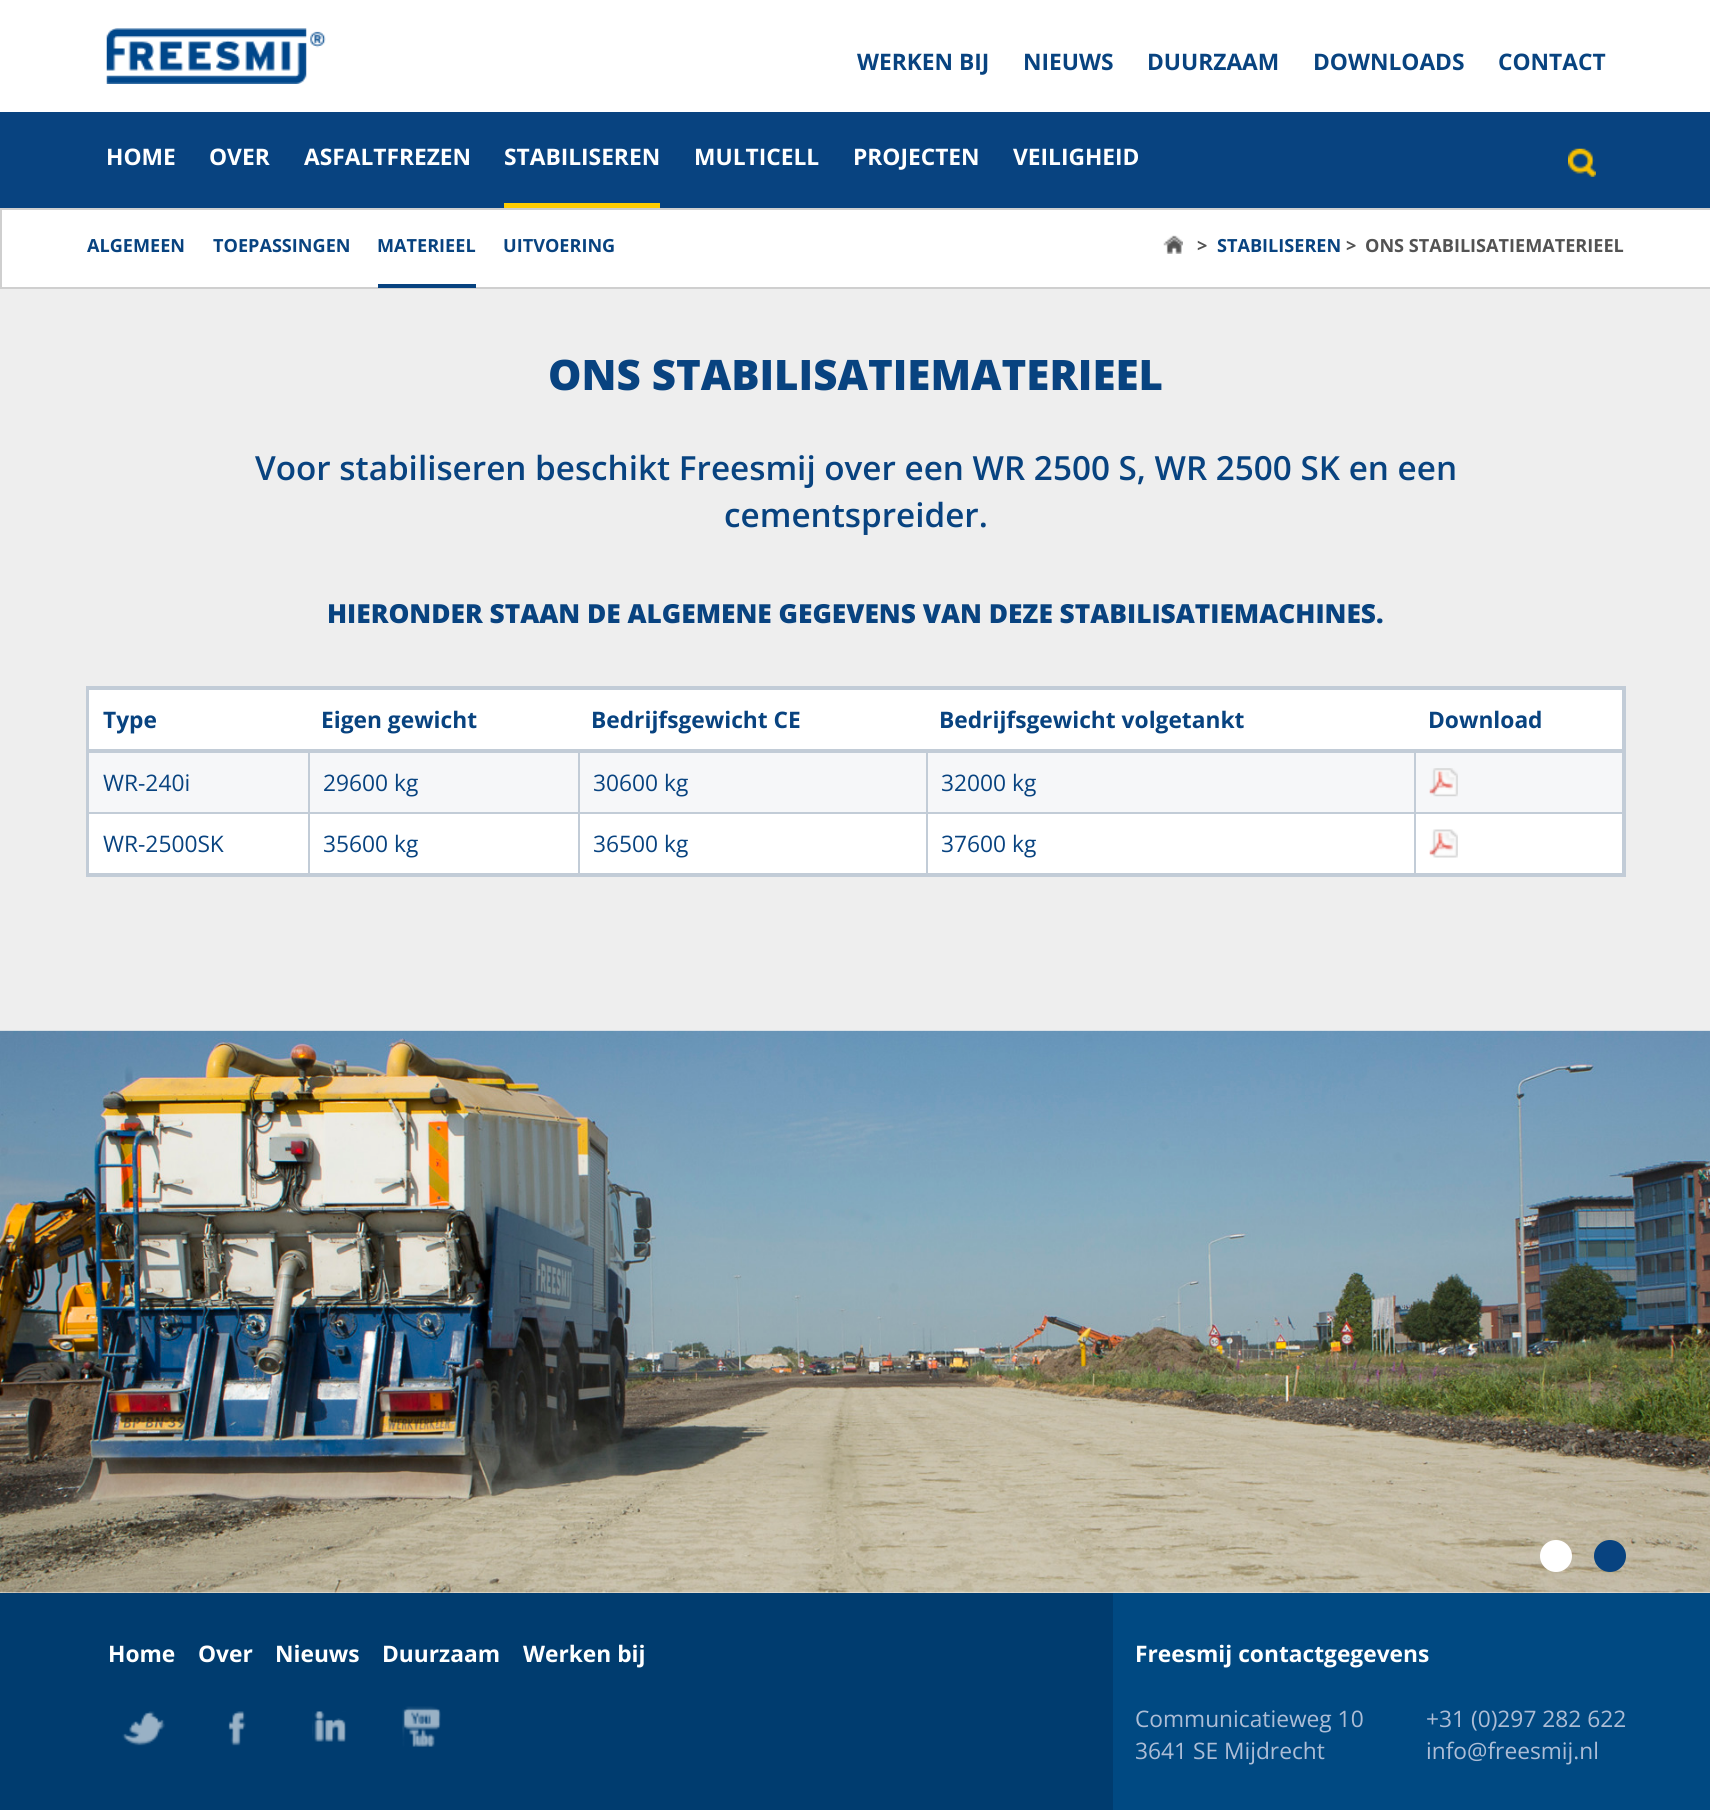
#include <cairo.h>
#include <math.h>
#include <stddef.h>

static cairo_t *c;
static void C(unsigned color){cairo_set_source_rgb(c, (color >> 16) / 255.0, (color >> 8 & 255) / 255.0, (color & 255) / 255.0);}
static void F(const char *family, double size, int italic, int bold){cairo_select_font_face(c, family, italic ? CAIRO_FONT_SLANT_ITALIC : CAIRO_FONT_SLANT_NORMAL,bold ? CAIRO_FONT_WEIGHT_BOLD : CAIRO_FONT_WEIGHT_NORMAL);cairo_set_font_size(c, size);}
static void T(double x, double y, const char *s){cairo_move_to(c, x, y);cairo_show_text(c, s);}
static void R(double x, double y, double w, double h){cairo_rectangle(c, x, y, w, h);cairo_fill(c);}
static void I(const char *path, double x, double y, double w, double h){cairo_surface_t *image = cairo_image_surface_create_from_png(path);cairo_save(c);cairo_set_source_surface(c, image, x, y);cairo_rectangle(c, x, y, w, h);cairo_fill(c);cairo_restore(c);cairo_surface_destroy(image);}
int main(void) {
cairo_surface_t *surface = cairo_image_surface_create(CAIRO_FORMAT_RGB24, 1710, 1810);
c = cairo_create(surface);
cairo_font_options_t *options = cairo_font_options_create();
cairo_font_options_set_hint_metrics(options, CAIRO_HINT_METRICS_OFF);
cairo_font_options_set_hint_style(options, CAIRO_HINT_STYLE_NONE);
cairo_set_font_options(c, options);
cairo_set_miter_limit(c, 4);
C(0xeeeeee);
cairo_paint(c);
C(0xffffff);
R(0,0,1710,112);
I("1.png",106,28,220,56);
F("Open Sans",22.75,0,1);
C(0x084380);
T(857,70,"WERKEN BIJ");
T(1023,70,"NIEUWS");
T(1147,70,"DUURZAAM");
T(1313,70,"DOWNLOADS");
T(1498,70,"CONTACT");
R(0,112,1710,96);
C(0xffffff);
T(106,165,"HOME");
T(209,165,"OVER");
T(304,165,"ASFALTFREZEN");
T(504,165,"STABILISEREN");
C(0xffcd00);
R(504,203,156,5);
C(0xffffff);
T(694,165,"MULTICELL");
T(853,165,"PROJECTEN");
T(1013,165,"VEILIGHEID");
I("2.png",1568,148,28,29);
cairo_rectangle(c,1,209,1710,79);
cairo_fill_preserve(c);
C(0xcfcfcf);
cairo_stroke(c);
F("Open Sans",18.1,0,1);
C(0x084380);
T(87,252,"ALGEMEEN");
T(213,252,"TOEPASSINGEN");
R(378,284,98,4);
T(377,252,"MATERIEEL");
T(503,252,"UITVOERING");
I("3.png",1163,235,20,19);
C(0x535353);
T(1197,252,">");
C(0x084380);
T(1217,252,"STABILISEREN");
C(0x535353);
T(1346,252,">");
T(1365,252,"ONS STABILISATIEMATERIEEL");
F("Open Sans ExtraBold",42,0,0);
C(0x084380);
T(548,390,"ONS STABILISATIEMATERIEEL");
F("Open Sans SemiBold",33.25,0,0);
T(255,480,"Voor stabiliseren beschikt Freesmij over een WR 2500 S, WR 2500 SK en een");
T(724,527,"cementspreider.");
F("Open Sans ExtraBold",26.25,0,0);
T(327,623,"HIERONDER STAAN DE ALGEMENE GEGEVENS VAN DEZE STABILISATIEMACHINES.");
cairo_rectangle(c,88,688,1536,187);
C(0xc2ccd7);
cairo_set_line_width(c,4);
cairo_stroke(c);
C(0xffffff);
R(89,690,1533,59);
C(0xc2ccd7);
R(89,749,1533,2);
F("Open Sans",22.75,0,1);
C(0x084380);
T(103,728,"Type");
T(321,728,"Eigen gewicht");
T(591,728,"Bedrijfsgewicht CE");
T(939,728,"Bedrijfsgewicht volgetankt");
T(1428,728,"Download");
C(0xf6f7f9);
R(89,753,219,59);
C(0xc2ccd7);
R(89,751,1533,2);
F("Open Sans",22.75,0,0);
C(0x084380);
T(103,791,"WR-240i");
C(0xf6f7f9);
R(310,753,268,59);
C(0xc2ccd7);
R(308,751,2,61);
C(0x084380);
T(323,791,"29600 kg");
C(0xf6f7f9);
R(580,753,346,59);
C(0xc2ccd7);
R(578,751,2,61);
C(0x084380);
T(593,791,"30600 kg");
C(0xf6f7f9);
R(928,753,486,59);
C(0xc2ccd7);
R(926,751,2,61);
C(0x084380);
T(941,791,"32000 kg");
C(0xf6f7f9);
R(1416,753,206,59);
C(0xc2ccd7);
R(1414,751,2,61);
I("4.png",1429,768,29,29);
C(0xffffff);
R(89,814,219,59);
C(0xc2ccd7);
R(89,812,1533,2);
C(0x084380);
T(103,852,"WR-2500SK");
C(0xffffff);
R(310,814,268,59);
C(0xc2ccd7);
R(308,812,2,61);
C(0x084380);
T(323,852,"35600 kg");
C(0xffffff);
R(580,814,346,59);
C(0xc2ccd7);
R(578,812,2,61);
C(0x084380);
T(593,852,"36500 kg");
C(0xffffff);
R(928,814,486,59);
C(0xc2ccd7);
R(926,812,2,61);
C(0x084380);
T(941,852,"37600 kg");
C(0xffffff);
R(1416,814,206,59);
C(0xc2ccd7);
R(1414,812,2,61);
I("5.png",1429,829,29,29);
I("6.png",0,1030,1710,563);
C(0xffffff);
cairo_arc(c,1556,1556,16,0,2 * M_PI);
cairo_fill(c);
C(0x084380);
cairo_arc(c,1610,1556,16,0,2 * M_PI);
cairo_fill(c);
C(0x003c6f);
R(0,1593,1113,217);
C(0x004982);
R(1113,1593,597,217);
F("Open Sans",22.75,0,1);
C(0xffffff);
T(108,1662,"Home");
T(198,1662,"Over");
T(275,1662,"Nieuws");
T(382,1662,"Duurzaam");
T(523,1662,"Werken bij");
I("7.png",122,1711,43,35);
I("8.png",228,1711,18,35);
I("9.png",312,1711,34,31);
I("10.png",402,1706,39,41);
T(1135,1662,"Freesmij contactgegevens");
F("Open Sans",22.75,0,0);
C(0xadbdd6);
T(1135,1727,"Communicatieweg 10");
T(1135,1759,"3641 SE Mijdrecht");
T(1426,1727,"+31 (0)297 282 622");
T(1426,1759,"info@freesmij.nl");
cairo_surface_write_to_png(surface, "o.png");
cairo_font_options_destroy(options);
cairo_destroy(c);
cairo_surface_destroy(surface);
return 0;
}
